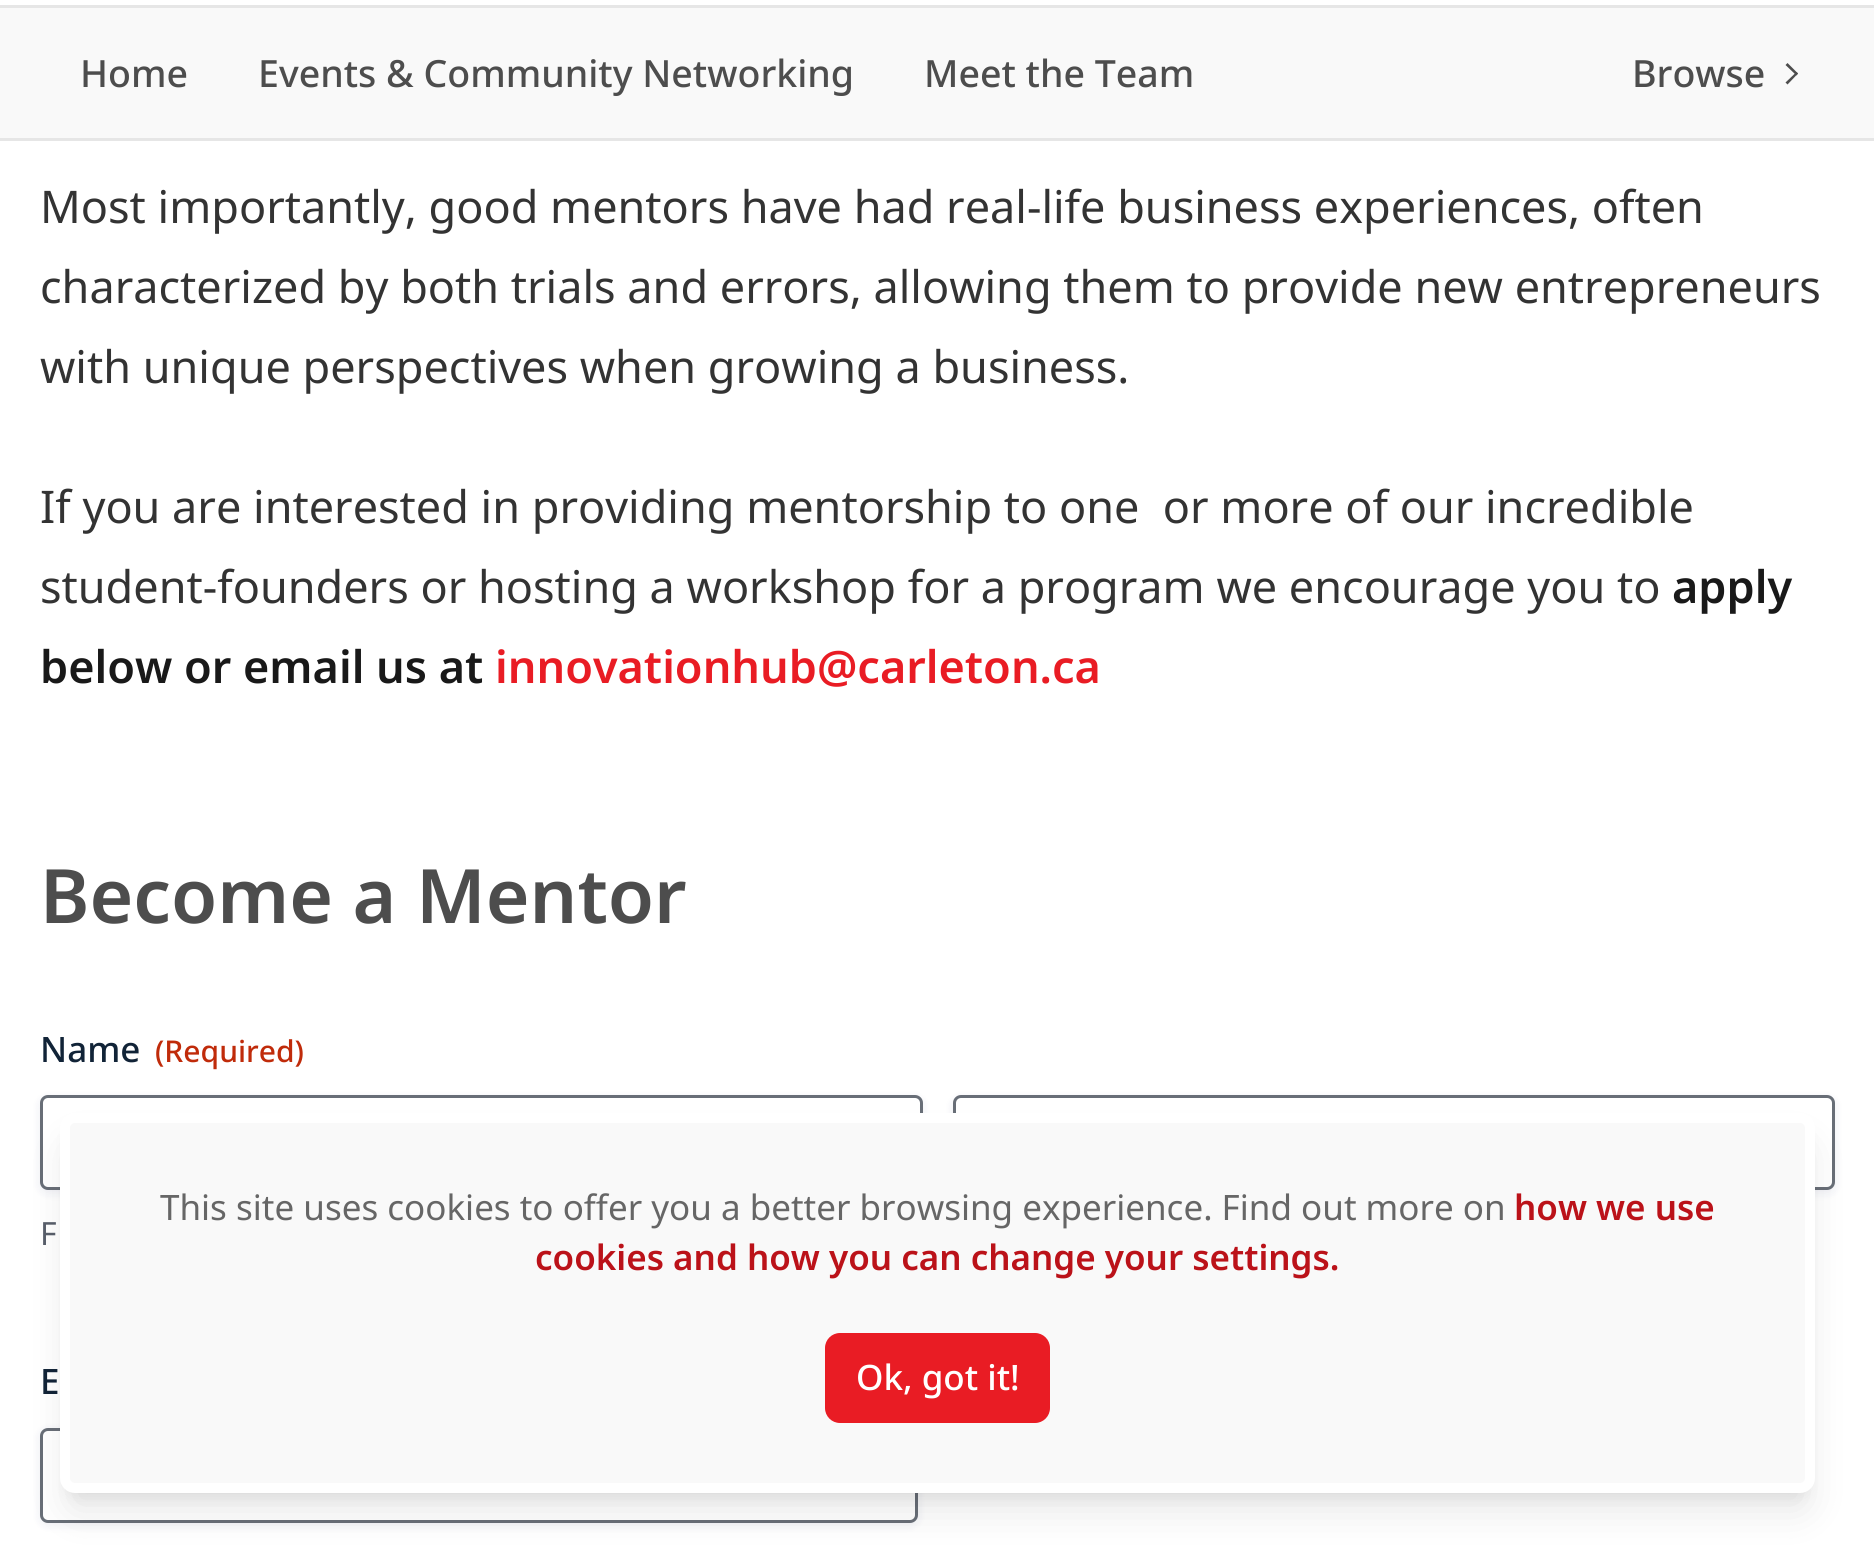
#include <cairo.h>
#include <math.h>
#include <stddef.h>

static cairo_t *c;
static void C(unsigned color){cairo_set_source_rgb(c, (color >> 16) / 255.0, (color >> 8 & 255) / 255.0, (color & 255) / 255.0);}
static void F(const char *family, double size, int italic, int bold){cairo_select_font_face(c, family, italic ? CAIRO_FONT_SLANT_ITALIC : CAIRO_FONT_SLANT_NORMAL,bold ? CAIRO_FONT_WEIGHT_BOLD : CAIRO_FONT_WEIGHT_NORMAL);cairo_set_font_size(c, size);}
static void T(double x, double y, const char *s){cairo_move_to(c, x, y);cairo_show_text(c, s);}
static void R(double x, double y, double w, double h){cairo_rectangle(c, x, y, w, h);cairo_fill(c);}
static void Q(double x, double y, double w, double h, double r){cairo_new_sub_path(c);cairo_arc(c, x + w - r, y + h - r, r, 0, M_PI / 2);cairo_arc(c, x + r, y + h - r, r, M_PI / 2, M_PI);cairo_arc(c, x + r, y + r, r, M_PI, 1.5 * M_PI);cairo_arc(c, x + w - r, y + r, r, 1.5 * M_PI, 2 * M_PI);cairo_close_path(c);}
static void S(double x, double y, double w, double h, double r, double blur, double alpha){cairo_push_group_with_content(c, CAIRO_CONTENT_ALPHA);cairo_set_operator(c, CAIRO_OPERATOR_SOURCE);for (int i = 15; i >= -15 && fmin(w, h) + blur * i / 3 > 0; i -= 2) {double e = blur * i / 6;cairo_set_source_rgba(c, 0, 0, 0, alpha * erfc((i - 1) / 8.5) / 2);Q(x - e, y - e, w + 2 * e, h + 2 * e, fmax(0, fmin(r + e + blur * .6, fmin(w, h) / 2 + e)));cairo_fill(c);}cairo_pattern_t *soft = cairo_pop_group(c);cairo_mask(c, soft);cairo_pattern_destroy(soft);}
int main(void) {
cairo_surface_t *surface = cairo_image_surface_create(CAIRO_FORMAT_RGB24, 1874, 1551);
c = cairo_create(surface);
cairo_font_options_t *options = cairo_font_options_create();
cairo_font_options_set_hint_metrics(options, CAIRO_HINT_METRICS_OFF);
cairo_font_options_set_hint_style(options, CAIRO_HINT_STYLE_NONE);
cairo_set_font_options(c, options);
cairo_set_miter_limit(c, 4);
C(0xffffff);
cairo_paint(c);
C(0xe6e6e6);
R(0,138,1874,3);
C(0xf9f9f9);
R(0,8,1874,130);
C(0xe6e6e6);
R(0,5,1874,3);
F("Noto Sans Medium",37.5,0,0);
C(0x4d4d4d);
T(80,87,"Home");
T(258,87,"Events & Community Networking");
T(924,87,"Meet the Team");
T(1632,87,"Browse");
cairo_new_path(c);
cairo_move_to(c,1798,73.5);
cairo_line_to(c,1787.5,84.5);
cairo_line_to(c,1785.5,82.5);
cairo_line_to(c,1796.5,72);
cairo_close_path(c);
cairo_fill(c);
cairo_new_path(c);
cairo_move_to(c,1798,73.5);
cairo_line_to(c,1796.5,75.5);
cairo_line_to(c,1785.5,65);
cairo_line_to(c,1787.5,63);
cairo_close_path(c);
cairo_fill(c);
F("Noto Sans",45,0,0);
C(0x333333);
T(40,223,"Most importantly, good mentors have had real-life business experiences, often");
T(40,303,"characterized by both trials and errors, allowing them to provide new entrepreneurs");
T(40,383,"with unique perspectives when growing a business.");
T(40,523,"If you are interested in providing mentorship to one  or more of our incredible");
T(40,603,"student-founders or hosting a workshop for a program we encourage you to");
F("Noto Sans SemiBold",45,0,0);
C(0x191919);
T(1672,603,"apply");
T(40,683,"below or email us at");
C(0xe91c24);
T(495,683,"innovationhub@carleton.ca");
F("Noto Sans SemiBold",75,0,0);
C(0x4d4d4d);
T(40,923,"Become a Mentor");
F("Noto Sans Medium",35,0,0);
C(0x112337);
T(40,1062,"Name");
F("Noto Sans Medium",30,0,0);
C(0xc02b0a);
T(155,1062,"(Required)");
C(0x121961);
S(953,1098,882,95,8,5,.08);
C(0xffffff);
Q(954.5,1096.5,879,92,6.5);
cairo_fill_preserve(c);
C(0x686e77);
cairo_set_line_width(c,3);
cairo_stroke(c);
C(0x121961);
S(40,1098,883,95,8,5,.08);
C(0xffffff);
Q(41.5,1096.5,880,92,6.5);
cairo_fill_preserve(c);
C(0x686e77);
cairo_stroke(c);
F("Noto Sans",32,0,0);
C(0x585e6a);
T(40,1245,"F");
F("Noto Sans Medium",35,0,0);
C(0x112337);
T(40,1394,"E");
C(0x121961);
S(40,1430,878,95,8,5,.08);
C(0xffffff);
Q(41.5,1429.5,875,92,6.5);
cairo_fill_preserve(c);
C(0x686e77);
cairo_stroke(c);
C(0x000000);
S(70,1133,1735,360,5,7.5,.1);
S(68,1145,1740,365,8,19,.1);
C(0xf9f9f9);
Q(65,1118,1745,370,10);
cairo_fill_preserve(c);
C(0xffffff);
cairo_set_line_width(c,10);
cairo_stroke(c);
F("Noto Sans",35,0,0);
C(0x666666);
T(160,1220,"This site uses cookies to offer you a better browsing experience. Find out more on");
F("Noto Sans SemiBold",35,0,0);
C(0xbb1219);
T(1514,1220,"how we use");
T(535,1270,"cookies and how you can change your settings.");
C(0xe91c24);
Q(825,1333,225,90,15);
cairo_fill(c);
F("Noto Sans Medium",35,0,0);
C(0xffffff);
T(856,1390,"Ok, got it!");
cairo_surface_write_to_png(surface, "o.png");
cairo_font_options_destroy(options);
cairo_destroy(c);
cairo_surface_destroy(surface);
return 0;
}
